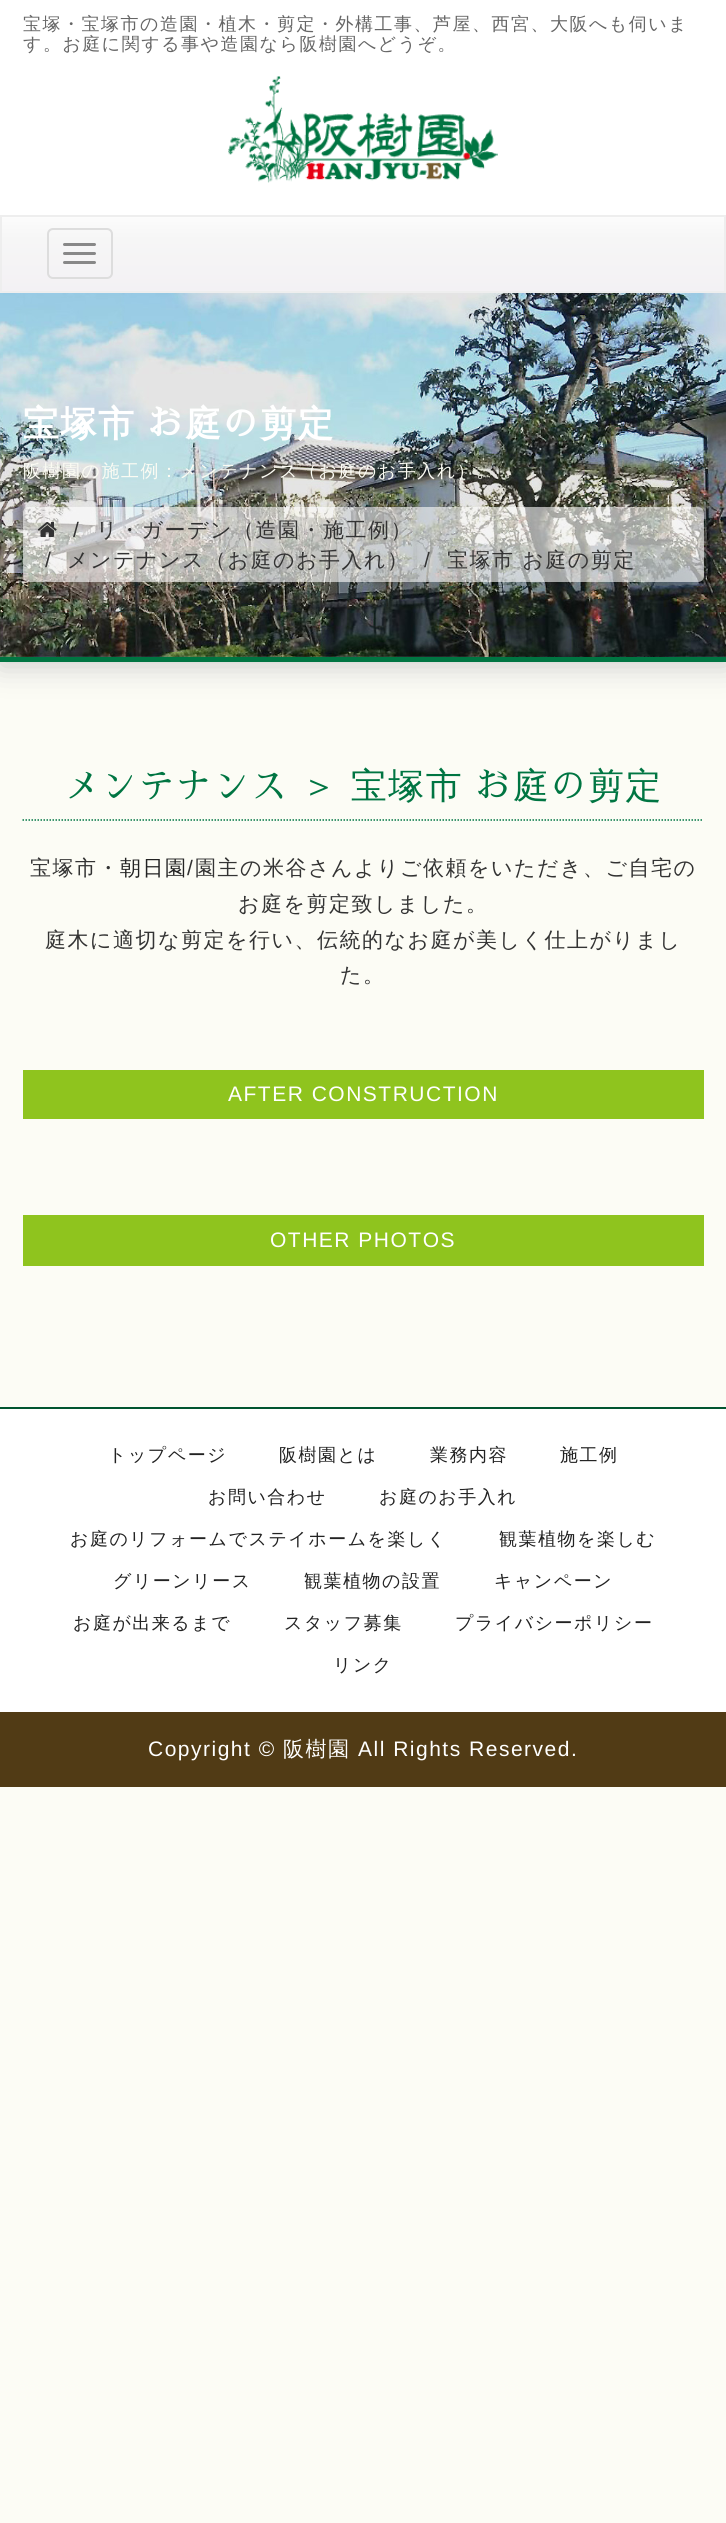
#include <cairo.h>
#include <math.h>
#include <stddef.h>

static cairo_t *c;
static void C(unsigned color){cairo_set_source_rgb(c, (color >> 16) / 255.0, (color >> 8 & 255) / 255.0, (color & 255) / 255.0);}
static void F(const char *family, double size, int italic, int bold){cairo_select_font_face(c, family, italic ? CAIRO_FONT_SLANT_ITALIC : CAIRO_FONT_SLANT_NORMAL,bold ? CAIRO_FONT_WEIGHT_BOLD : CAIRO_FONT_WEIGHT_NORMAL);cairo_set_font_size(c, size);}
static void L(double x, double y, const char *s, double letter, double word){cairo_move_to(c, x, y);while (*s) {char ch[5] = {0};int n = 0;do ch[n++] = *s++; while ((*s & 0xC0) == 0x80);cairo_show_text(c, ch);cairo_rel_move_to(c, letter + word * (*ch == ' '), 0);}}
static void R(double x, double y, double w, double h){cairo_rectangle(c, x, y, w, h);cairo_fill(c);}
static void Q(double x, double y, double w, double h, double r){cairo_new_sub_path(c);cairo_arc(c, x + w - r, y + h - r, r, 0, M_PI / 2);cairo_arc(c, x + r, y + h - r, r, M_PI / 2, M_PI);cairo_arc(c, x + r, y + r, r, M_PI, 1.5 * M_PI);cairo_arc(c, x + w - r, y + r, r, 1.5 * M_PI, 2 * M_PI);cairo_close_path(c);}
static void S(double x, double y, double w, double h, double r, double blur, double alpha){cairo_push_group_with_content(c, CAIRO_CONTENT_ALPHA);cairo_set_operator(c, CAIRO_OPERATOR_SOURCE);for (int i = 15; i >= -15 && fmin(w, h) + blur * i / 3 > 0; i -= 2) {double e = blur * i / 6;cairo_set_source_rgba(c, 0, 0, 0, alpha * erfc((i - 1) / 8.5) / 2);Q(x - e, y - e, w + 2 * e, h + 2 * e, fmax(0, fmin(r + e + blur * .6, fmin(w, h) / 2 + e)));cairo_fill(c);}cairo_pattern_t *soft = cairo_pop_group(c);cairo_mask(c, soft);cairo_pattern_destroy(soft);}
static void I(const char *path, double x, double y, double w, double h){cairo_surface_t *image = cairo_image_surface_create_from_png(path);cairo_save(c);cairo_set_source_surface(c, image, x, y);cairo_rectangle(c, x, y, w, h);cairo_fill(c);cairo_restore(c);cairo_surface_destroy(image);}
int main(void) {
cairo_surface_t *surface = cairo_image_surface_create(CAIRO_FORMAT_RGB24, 726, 2523);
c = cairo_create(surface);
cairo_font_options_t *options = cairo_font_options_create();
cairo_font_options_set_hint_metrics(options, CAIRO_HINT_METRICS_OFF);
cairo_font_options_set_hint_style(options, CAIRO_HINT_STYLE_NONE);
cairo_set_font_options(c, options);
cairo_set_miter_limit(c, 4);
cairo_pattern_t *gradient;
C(0xfcfcf5);
cairo_paint(c);
C(0xffffff);
R(0,0,726,215);
F("WenQuanYi Zen Hei Medium",18,0,0);
C(0x666666);
L(23,30,"宝塚・宝塚市の造園・植木・剪定・外構工事、芦屋、西宮、大阪へも伺いま",1.5,0);
L(23,50,"す。お庭に関する事や造園なら阪樹園へどうぞ。",1.5,0);
I("1.png",228,76,270,107);
C(0xcccccc);
S(0,294,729,372,0,15,1);
gradient = cairo_pattern_create_linear(363,216,363,291);
cairo_pattern_add_color_stop_rgba(gradient,0,0.988,0.988,0.988,1);
cairo_pattern_add_color_stop_rgba(gradient,.3,0.965,0.965,0.965,1);
cairo_pattern_add_color_stop_rgba(gradient,1,0.953,0.945,0.957,1);
cairo_set_source(c,gradient);
cairo_pattern_destroy(gradient);
R(2,217,722,74);
cairo_rectangle(c,1,216,724,76);
C(0xeeeeee);
cairo_stroke(c);
Q(48,229,64,49,5);
C(0xdddddd);
cairo_stroke(c);
C(0x888888);
Q(63,243,33,3,1.5);
cairo_fill(c);
Q(63,252,33,3,1.5);
cairo_fill(c);
Q(63,261,33,3,1.5);
cairo_fill(c);
I("2.png",0,293,726,364);
C(0x007542);
R(0,657,726,5);
F("WenQuanYi Zen Hei",36,0,1);
C(0xffffff);
L(23,436,"宝塚市",1.5,0);
F("Sawarabi Mincho",36,0,1);
L(147,436,"お",1.5,0);
F("WenQuanYi Zen Hei",36,0,1);
L(185,436,"庭",1.5,0);
F("Sawarabi Mincho",36,0,1);
L(222,436,"の",1.5,0);
F("WenQuanYi Zen Hei",36,0,1);
L(260,436,"剪定",1.5,0);
F("WenQuanYi Zen Hei Medium",18,0,0);
C(0xfbfbf3);
L(23,477,"阪樹園の施工例：メンテナンス（お庭のお手入れ）。",1.5,0);
cairo_set_source_rgba(c,1,1,1,0.6);
Q(23,507,681,75,6);
cairo_fill(c);
I("3.png",37,522,20,15);
F("Liberation Sans",21,0,0);
C(0x333333);
L(73,537,"/",1.5,0);
F("WenQuanYi Zen Hei Medium",21,0,0);
L(96,537,"リ・ガーデン（造園・施工例）",1.5,0);
F("Liberation Sans",21,0,0);
L(45,567,"/",1.5,0);
F("WenQuanYi Zen Hei Medium",21,0,0);
L(67,567,"メンテナンス（お庭のお手入れ）",1.5,0);
F("Liberation Sans",21,0,0);
L(424,567,"/",1.5,0);
F("WenQuanYi Zen Hei Medium",21,0,0);
L(447,567,"宝塚市 お庭の剪定",1.5,0);
cairo_new_path(c);
cairo_move_to(c,22.5,820);
cairo_line_to(c,703.5,820);
C(0x007542);
cairo_set_line_width(c,1.5);
cairo_set_dash(c,(double[]){1.5,1.5},2,0);
cairo_stroke(c);
F("Sawarabi Mincho",36,0,0);
L(63,798,"メンテナンス",1.5,0);
F("WenQuanYi Zen Hei Medium",36,0,0);
L(301,798,"＞ 宝塚市",1.5,0);
F("Sawarabi Mincho",36,0,0);
L(475,798,"お",1.5,0);
F("WenQuanYi Zen Hei Medium",36,0,0);
L(513,798,"庭",1.5,0);
F("Sawarabi Mincho",36,0,0);
L(550,798,"の",1.5,0);
F("WenQuanYi Zen Hei Medium",36,0,0);
L(588,798,"剪定",1.5,0);
F("WenQuanYi Zen Hei Medium",21,0,0);
C(0x333333);
L(30,875,"宝塚市・",1.5,0);
C(0x222222);
L(120,875,"朝日園",1.5,0);
F("Liberation Sans",21,0,0);
C(0x333333);
L(187,875,"/",1.5,0);
F("WenQuanYi Zen Hei Medium",21,0,0);
L(195,875,"園主の米谷さんよりご依頼をいただき、ご自宅の",1.5,0);
L(238,911,"お庭を剪定致しました。",1.5,0);
L(45,947,"庭木に適切な剪定を行い、伝統的なお庭が美しく仕上がりまし",1.5,0);
L(340,982,"た。",1.5,0);
C(0x8fc41e);
R(23,1070,681,49);
F("Liberation Sans",21,0,0);
C(0xffffff);
L(228,1101,"AFTER CONSTRUCTION",1.5,0);
C(0x8fc41e);
R(23,1215,681,51);
C(0xffffff);
L(270,1247,"OTHER PHOTOS",1.5,0);
R(0,1409,726,303);
C(0x015530);
R(0,1407,726,2);
F("WenQuanYi Zen Hei Medium",18,0,0);
C(0x222222);
L(108,1461,"トップページ",1.5,0);
L(279,1461,"阪樹園とは",1.5,0);
L(430,1461,"業務内容",1.5,0);
L(560,1461,"施工例",1.5,0);
L(208,1503,"お問い合わせ",1.5,0);
L(379,1503,"お庭のお手入れ",1.5,0);
L(70,1545,"お庭のリフォームでステイホームを楽しく",1.5,0);
L(499,1545,"観葉植物を楽しむ",1.5,0);
L(113,1587,"グリーンリース",1.5,0);
L(304,1587,"観葉植物の設置",1.5,0);
L(494,1587,"キャンペーン",1.5,0);
L(73,1629,"お庭が出来るまで",1.5,0);
L(284,1629,"スタッフ募集",1.5,0);
L(455,1629,"プライバシーポリシー",1.5,0);
L(333,1671,"リンク",1.5,0);
C(0x513b15);
R(0,1712,726,75);
F("Liberation Sans",21,0,0);
C(0xffffff);
L(148,1756,"Copyright ©",1.5,0);
F("WenQuanYi Zen Hei Medium",21,0,0);
L(283,1756,"阪樹園",1.5,0);
F("Liberation Sans",21,0,0);
L(358,1756,"All Rights Reserved.",1.5,0);
cairo_surface_write_to_png(surface, "o.png");
cairo_font_options_destroy(options);
cairo_destroy(c);
cairo_surface_destroy(surface);
return 0;
}
